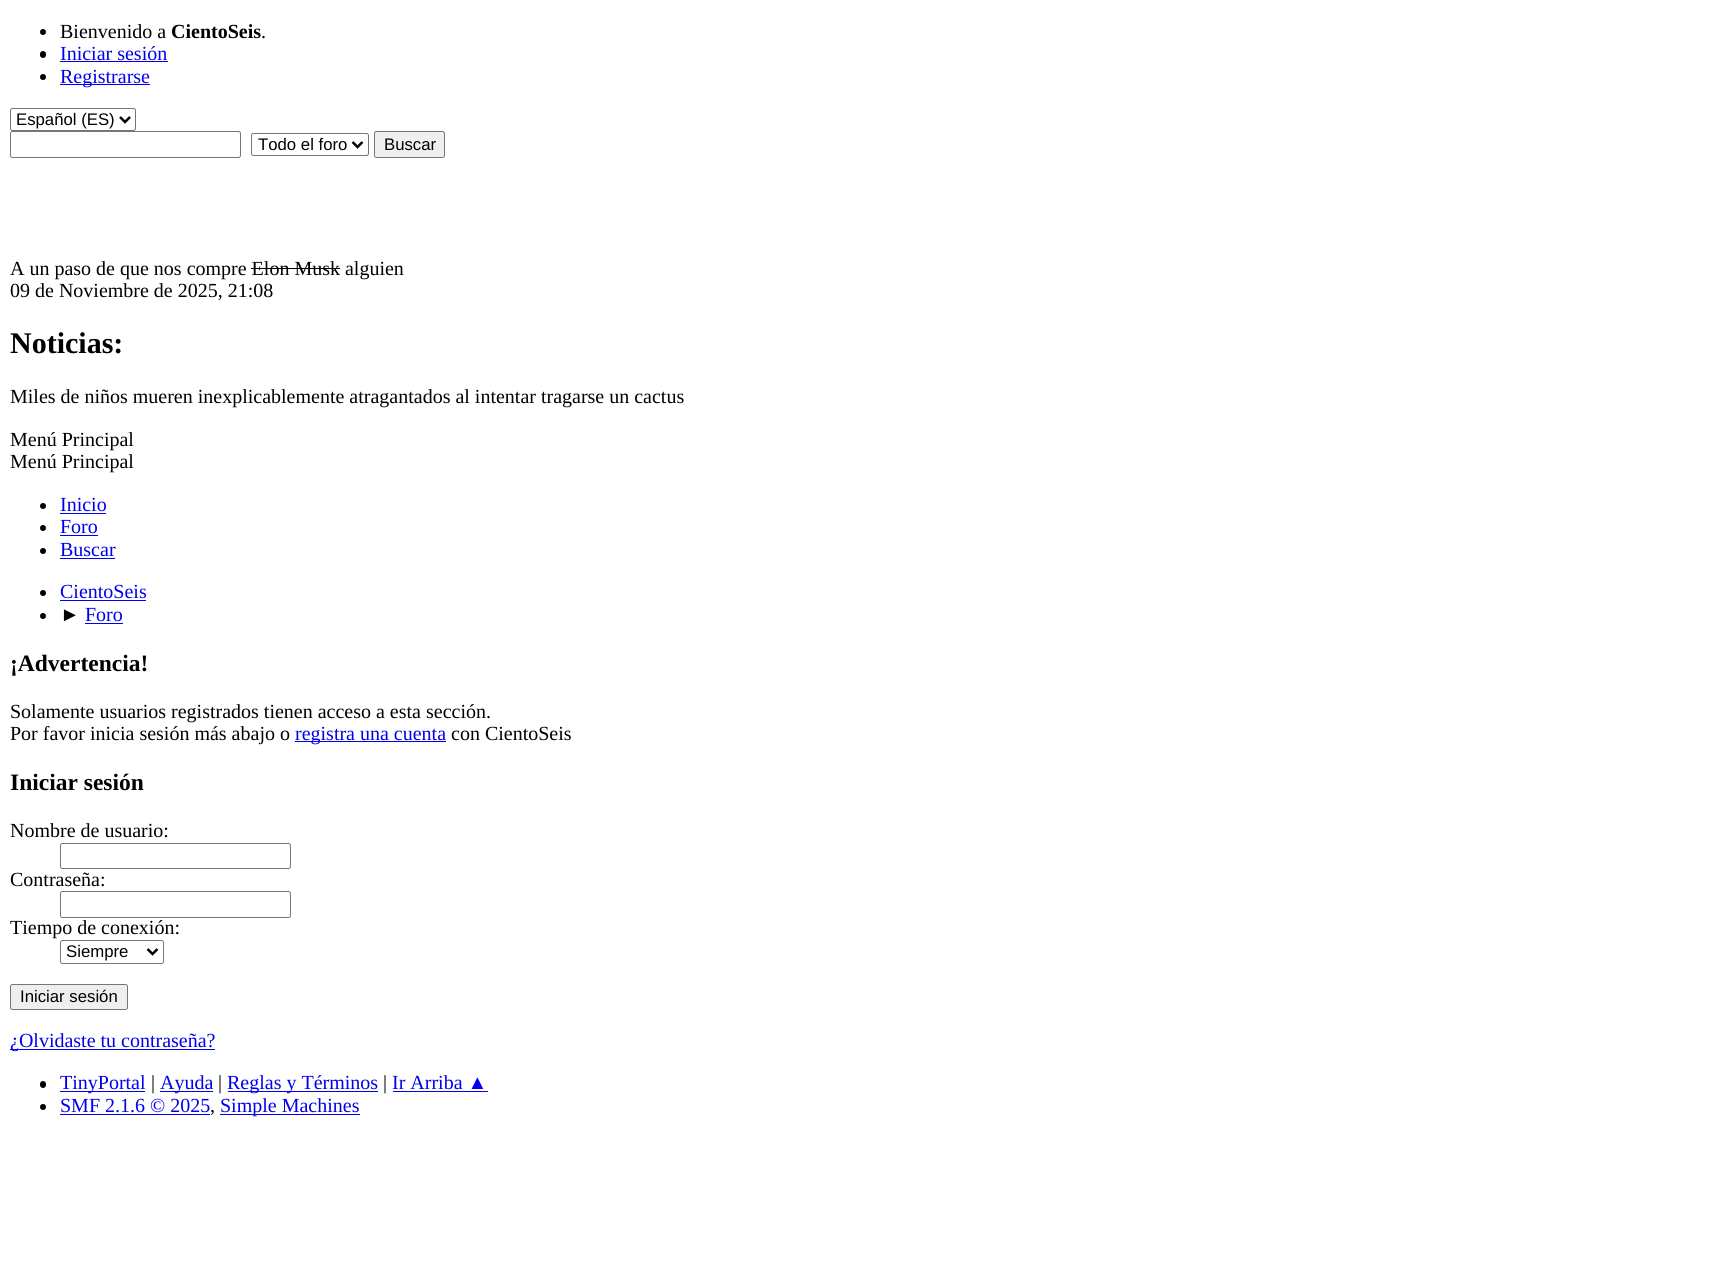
#include <cairo.h>
#include <math.h>
#include <stddef.h>

static cairo_t *c;
static void C(unsigned color){cairo_set_source_rgb(c, (color >> 16) / 255.0, (color >> 8 & 255) / 255.0, (color & 255) / 255.0);}
static void F(const char *family, double size, int italic, int bold){cairo_select_font_face(c, family, italic ? CAIRO_FONT_SLANT_ITALIC : CAIRO_FONT_SLANT_NORMAL,bold ? CAIRO_FONT_WEIGHT_BOLD : CAIRO_FONT_WEIGHT_NORMAL);cairo_set_font_size(c, size);}
static void T(double x, double y, const char *s){cairo_move_to(c, x, y);cairo_show_text(c, s);}
static void R(double x, double y, double w, double h){cairo_rectangle(c, x, y, w, h);cairo_fill(c);}
static void Q(double x, double y, double w, double h, double r){cairo_new_sub_path(c);cairo_arc(c, x + w - r, y + h - r, r, 0, M_PI / 2);cairo_arc(c, x + r, y + h - r, r, M_PI / 2, M_PI);cairo_arc(c, x + r, y + r, r, M_PI, 1.5 * M_PI);cairo_arc(c, x + w - r, y + r, r, 1.5 * M_PI, 2 * M_PI);cairo_close_path(c);}
int main(void) {
cairo_surface_t *surface = cairo_image_surface_create(CAIRO_FORMAT_RGB24, 1723, 1287);
c = cairo_create(surface);
cairo_font_options_t *options = cairo_font_options_create();
cairo_font_options_set_hint_metrics(options, CAIRO_HINT_METRICS_OFF);
cairo_font_options_set_hint_style(options, CAIRO_HINT_STYLE_NONE);
cairo_set_font_options(c, options);
cairo_set_miter_limit(c, 4);
C(0xffffff);
cairo_paint(c);
C(0x000000);
cairo_arc(c,43,32,3,0,2 * M_PI);
cairo_fill(c);
F("Liberation Serif",20,0,0);
T(60,38,"Bienvenido a");
F("Liberation Serif",20,0,1);
T(171,38,"CientoSeis");
F("Liberation Serif",20,0,0);
T(261,38,".");
Q(40,51,6,7,3);
cairo_fill(c);
C(0x0000ee);
T(60,60,"Iniciar sesión");
R(60,61,108,1);
C(0x000000);
cairo_new_path(c);
cairo_arc(c,43,77,3,0,2 * M_PI);
cairo_fill(c);
C(0x0000ee);
R(60,84,90,1);
T(60,83,"Registrarse");
Q(10.5,108.5,125,22,2);
C(0x767676);
cairo_set_line_width(c,1);
cairo_stroke(c);
cairo_new_path(c);
cairo_move_to(c,120,117);
cairo_line_to(c,125,122);
cairo_line_to(c,130,117);
C(0x000000);
cairo_set_line_width(c,2.5);
cairo_stroke(c);
F("Liberation Sans",16.75,0,0);
T(16,125,"Español (ES)");
Q(10.5,131.5,230,26,2);
C(0x767676);
cairo_set_line_width(c,1);
cairo_stroke(c);
Q(251.5,133.5,117,22,2);
cairo_stroke(c);
cairo_new_path(c);
cairo_move_to(c,352.5,142);
cairo_line_to(c,357.5,147);
cairo_line_to(c,362.5,142);
C(0x000000);
cairo_set_line_width(c,2.5);
cairo_stroke(c);
T(258,150,"Todo el foro");
C(0xefefef);
Q(374.5,131.5,70,26,2);
cairo_fill_preserve(c);
C(0x767676);
cairo_set_line_width(c,1);
cairo_stroke(c);
C(0x000000);
T(384,150,"Buscar");
F("Liberation Serif",20,0,0);
T(10,275,"A un paso de que nos compre Elon Musk alguien");
R(251,268,89,1);
T(10,297,"09 de Noviembre de 2025, 21:08");
F("Liberation Serif",30,0,1);
T(10,353,"Noticias:");
F("Liberation Serif",20,0,0);
T(10,403,"Miles de niños mueren inexplicablemente atragantados al intentar tragarse un cactus");
T(10,446,"Menú Principal");
T(10,468,"Menú Principal");
cairo_new_path(c);
cairo_arc(c,43,506,3,0,2 * M_PI);
cairo_fill(c);
C(0x0000ee);
T(60,511,"Inicio");
R(60,513,46,1);
C(0x000000);
cairo_new_path(c);
cairo_arc(c,43,528,3,0,2 * M_PI);
cairo_fill(c);
C(0x0000ee);
T(60,533,"Foro");
R(60,535,38,1);
C(0x000000);
cairo_new_path(c);
cairo_arc(c,43,551,3,0,2 * M_PI);
cairo_fill(c);
C(0x0000ee);
T(60,556,"Buscar");
R(60,558,55,1);
C(0x000000);
cairo_new_path(c);
cairo_arc(c,43,593,3,0,2 * M_PI);
cairo_fill(c);
C(0x0000ee);
T(60,598,"CientoSeis");
R(60,600,86,1);
C(0x000000);
cairo_new_path(c);
cairo_arc(c,43,616,3,0,2 * M_PI);
cairo_fill(c);
T(60,621,"►");
C(0x0000ee);
T(85,621,"Foro");
R(85,623,38,1);
F("Liberation Serif",23.5,0,1);
C(0x000000);
T(10,671,"¡Advertencia!");
F("Liberation Serif",20,0,0);
T(10,718,"Solamente usuarios registrados tienen acceso a esta sección.");
T(10,740,"Por favor inicia sesión más abajo o");
C(0x0000ee);
R(295,741,151,1);
T(295,740,"registra una cuenta");
C(0x000000);
T(451,740,"con CientoSeis");
F("Liberation Serif",23.5,0,1);
T(10,790,"Iniciar sesión");
F("Liberation Serif",20,0,0);
T(10,837,"Nombre de usuario:");
Q(60.5,843.5,230,25,2);
C(0x767676);
cairo_stroke(c);
C(0x000000);
T(10,886,"Contraseña:");
Q(60.5,891.5,230,26,2);
C(0x767676);
cairo_stroke(c);
C(0x000000);
T(10,934,"Tiempo de conexión:");
Q(60.5,940.5,103,23,2);
C(0x767676);
cairo_stroke(c);
cairo_new_path(c);
cairo_move_to(c,147.5,949);
cairo_line_to(c,152.5,954);
cairo_line_to(c,157.5,949);
C(0x000000);
cairo_set_line_width(c,2.5);
cairo_stroke(c);
F("Liberation Sans",16.75,0,0);
T(66,957,"Siempre");
C(0xefefef);
Q(10.5,984.5,117,25,2);
cairo_fill_preserve(c);
C(0x767676);
cairo_set_line_width(c,1);
cairo_stroke(c);
C(0x000000);
T(20,1002,"Iniciar sesión");
C(0x0000ee);
R(10,1049,205,1);
F("Liberation Serif",20,0,0);
T(10,1047,"¿Olvidaste tu contraseña?");
C(0x000000);
Q(40,1081,6,7,3);
cairo_fill(c);
C(0x0000ee);
R(60,1091,85,1);
T(60,1089,"TinyPortal");
C(0x000000);
T(151,1089,"|");
C(0x0000ee);
R(160,1091,53,1);
T(160,1089,"Ayuda");
C(0x000000);
T(218,1089,"|");
C(0x0000ee);
R(228,1091,150,1);
T(227,1089,"Reglas y Términos");
C(0x000000);
T(383,1089,"|");
C(0x0000ee);
T(392,1089,"Ir Arriba ▲");
R(393,1091,95,1);
C(0x000000);
cairo_new_path(c);
cairo_arc(c,43,1107,3,0,2 * M_PI);
cairo_fill(c);
C(0x0000ee);
T(60,1112,"SMF 2.1.6 © 2025");
R(60,1114,150,1);
R(220,1114,140,1);
T(220,1112,"Simple Machines");
C(0x000000);
T(210,1112,",");
cairo_surface_write_to_png(surface, "o.png");
cairo_font_options_destroy(options);
cairo_destroy(c);
cairo_surface_destroy(surface);
return 0;
}
